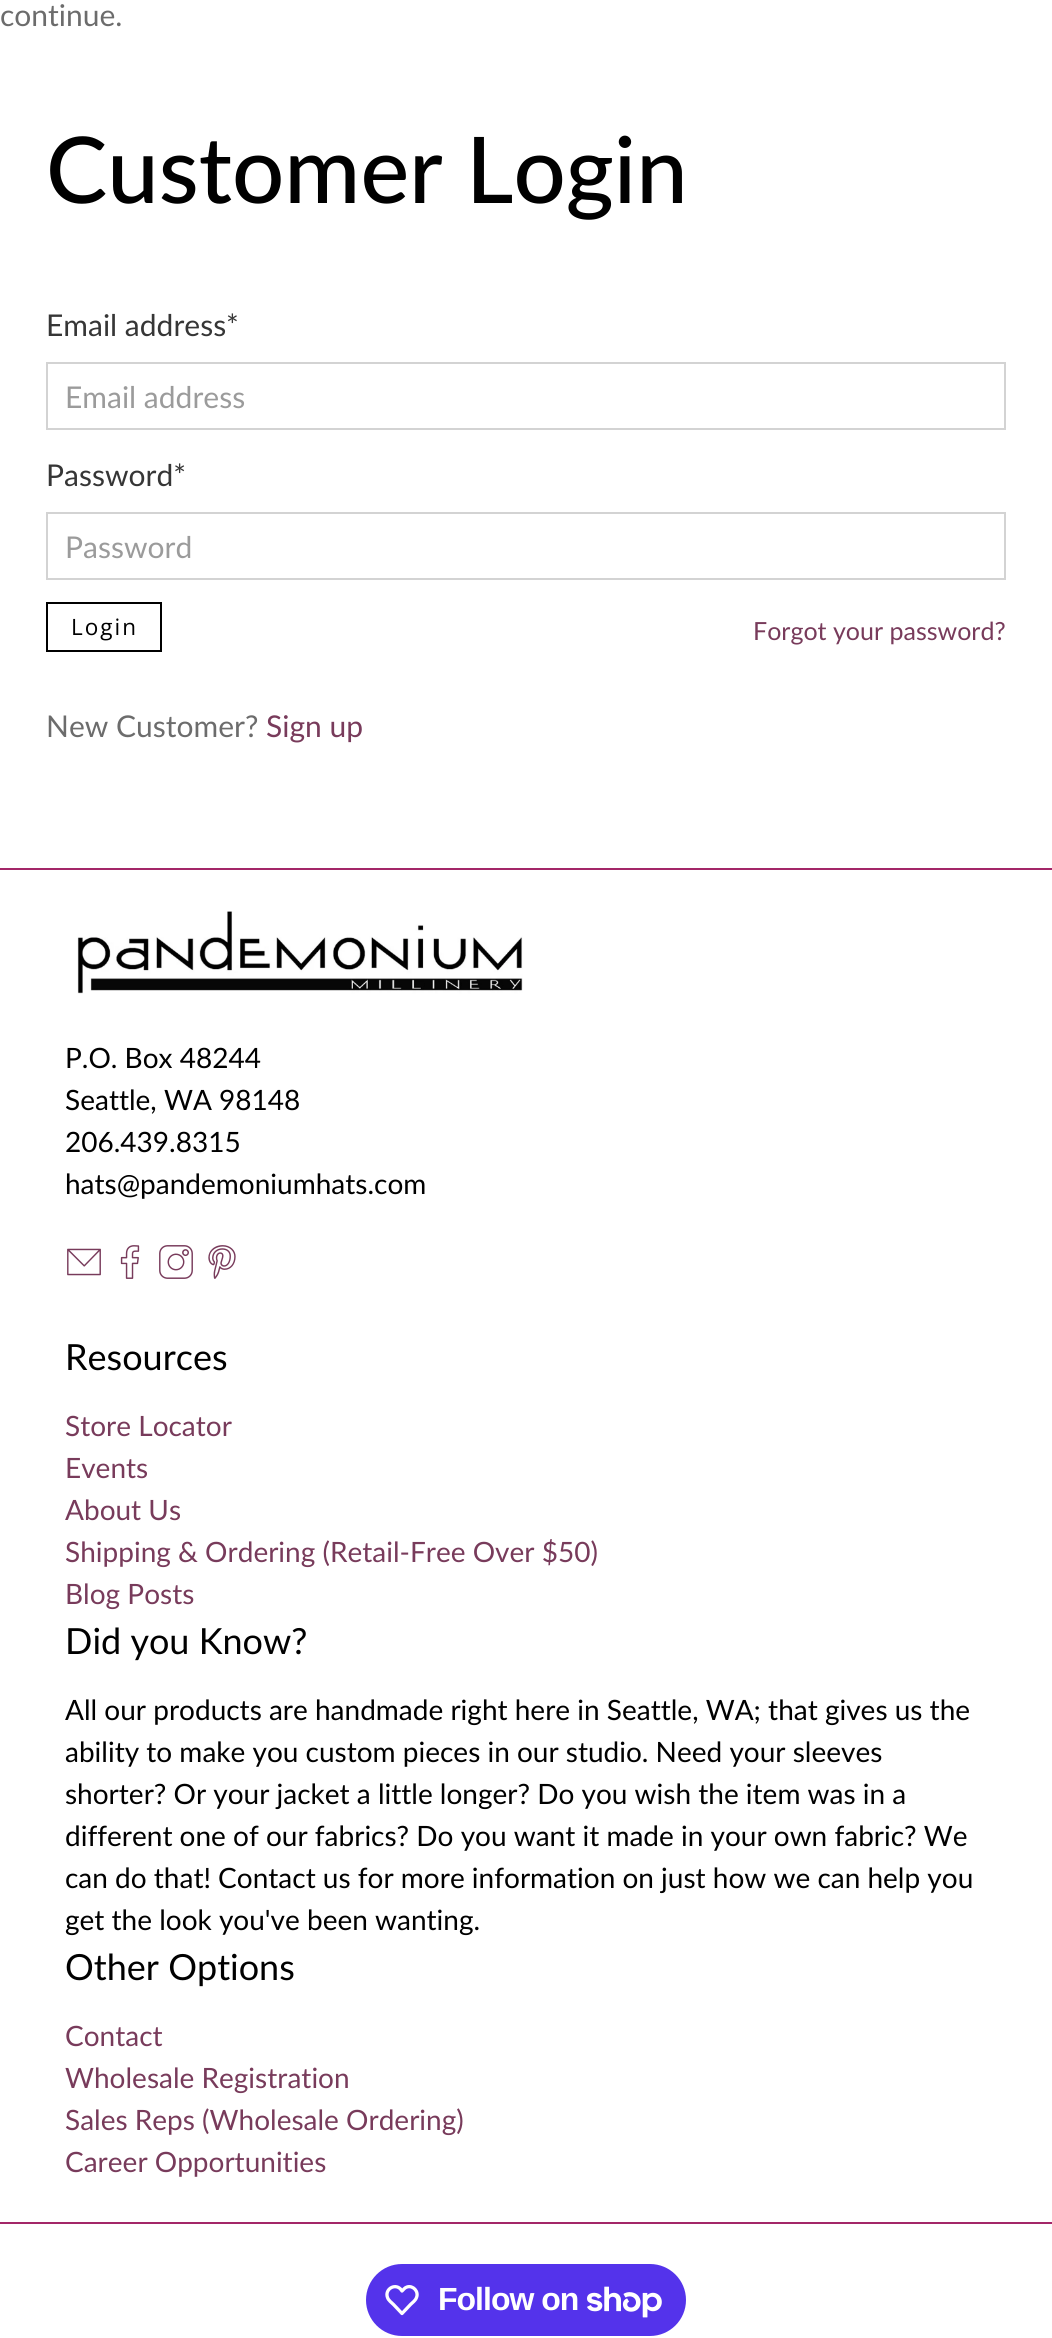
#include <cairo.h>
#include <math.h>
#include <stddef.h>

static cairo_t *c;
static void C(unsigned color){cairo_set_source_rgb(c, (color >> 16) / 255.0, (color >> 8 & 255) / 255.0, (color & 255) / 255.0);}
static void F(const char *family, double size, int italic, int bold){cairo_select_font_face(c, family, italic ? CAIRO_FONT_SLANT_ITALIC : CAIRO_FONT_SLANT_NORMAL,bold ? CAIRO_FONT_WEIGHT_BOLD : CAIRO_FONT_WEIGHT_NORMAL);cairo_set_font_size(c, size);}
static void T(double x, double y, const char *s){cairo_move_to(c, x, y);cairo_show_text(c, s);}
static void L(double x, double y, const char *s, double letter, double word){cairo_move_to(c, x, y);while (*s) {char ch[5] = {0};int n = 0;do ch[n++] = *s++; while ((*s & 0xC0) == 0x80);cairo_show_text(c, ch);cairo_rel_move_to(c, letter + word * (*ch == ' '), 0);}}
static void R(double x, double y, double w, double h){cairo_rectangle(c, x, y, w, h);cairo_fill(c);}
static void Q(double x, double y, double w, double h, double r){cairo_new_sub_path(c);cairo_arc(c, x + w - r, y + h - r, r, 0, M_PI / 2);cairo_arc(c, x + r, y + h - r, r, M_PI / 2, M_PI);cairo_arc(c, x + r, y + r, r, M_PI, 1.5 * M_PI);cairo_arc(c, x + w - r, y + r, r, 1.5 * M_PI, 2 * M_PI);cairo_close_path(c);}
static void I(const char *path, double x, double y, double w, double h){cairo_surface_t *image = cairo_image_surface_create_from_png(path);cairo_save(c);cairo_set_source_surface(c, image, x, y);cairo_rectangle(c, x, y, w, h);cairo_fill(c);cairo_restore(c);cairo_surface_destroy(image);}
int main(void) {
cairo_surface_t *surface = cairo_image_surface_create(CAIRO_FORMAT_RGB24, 1052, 2338);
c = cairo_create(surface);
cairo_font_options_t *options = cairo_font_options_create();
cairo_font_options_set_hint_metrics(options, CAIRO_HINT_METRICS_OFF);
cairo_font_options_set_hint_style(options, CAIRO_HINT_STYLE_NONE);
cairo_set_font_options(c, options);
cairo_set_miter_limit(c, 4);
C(0xffffff);
cairo_paint(c);
F("Lato",30,0,0);
C(0x6c6c6c);
T(0,26,"continue.");
F("Lato Medium",92,0,0);
C(0x000000);
T(46,203,"Customer Login");
F("Lato",30,0,0);
C(0x363636);
T(46,336,"Email address*");
cairo_rectangle(c,47,363,958,66);
C(0xd3d3d3);
cairo_stroke(c);
C(0x9b9b9b);
T(65,408,"Email address");
C(0x363636);
T(46,486,"Password*");
cairo_rectangle(c,47,513,958,66);
C(0xd3d3d3);
cairo_stroke(c);
C(0x9b9b9b);
T(65,558,"Password");
cairo_rectangle(c,47,603,114,48);
C(0x000000);
cairo_stroke(c);
F("Open Sans",22.5,0,0);
L(71,635,"Login",2,0);
F("Lato",25,0,0);
C(0x783b5b);
T(753,640,"Forgot your password?");
F("Lato",30,0,0);
C(0x6c6c6c);
T(46,737,"New Customer?");
C(0x783b5b);
T(266,737,"Sign up");
C(0xa32668);
R(0,868,1052,2);
R(0,2222,1052,2);
I("1.png",77,911,446,83);
F("Lato",28,0,0);
C(0x000000);
T(65,1068,"P.O. Box 48244");
T(65,1110,"Seattle, WA 98148");
T(65,1152,"206.439.8315");
T(65,1194,"hats@pandemoniumhats.com");
I("2.png",67,1248,34,28);
I("3.png",120,1245,20,34);
I("4.png",159,1245,34,34);
I("5.png",208,1245,28,34);
F("Lato",36,0,0);
T(65,1370,"Resources");
F("Lato",28,0,0);
C(0x783b5b);
T(65,1436,"Store Locator");
T(65,1478,"Events");
T(65,1520,"About Us");
T(65,1562,"Shipping & Ordering (Retail-Free Over $50)");
T(65,1604,"Blog Posts");
F("Lato",36,0,0);
C(0x000000);
T(65,1654,"Did you Know?");
F("Lato",28,0,0);
T(65,1720,"All our products are handmade right here in Seattle, WA; that gives us the");
T(65,1762,"ability to make you custom pieces in our studio. Need your sleeves");
T(65,1804,"shorter? Or your jacket a little longer? Do you wish the item was in a");
T(65,1846,"different one of our fabrics? Do you want it made in your own fabric? We");
T(65,1888,"can do that! Contact us for more information on just how we can help you");
T(65,1930,"get the look you've been wanting.");
F("Lato",36,0,0);
T(65,1980,"Other Options");
F("Lato",28,0,0);
C(0x783b5b);
T(65,2046,"Contact");
T(65,2088,"Wholesale Registration");
T(65,2130,"Sales Reps (Wholesale Ordering)");
T(65,2172,"Career Opportunities");
C(0x5433eb);
Q(366,2264,320,72,36);
cairo_fill(c);
cairo_new_path(c);
cairo_move_to(c,400.5,2289);
cairo_line_to(c,402,2291);
cairo_curve_to(c,403.5,2289.5,405,2287.5,407,2287);
cairo_curve_to(c,413,2285,419,2291.5,416.5,2297.5);
cairo_curve_to(c,415.5,2300.5,412.5,2302.5,410.5,2304.5);
cairo_line_to(c,402,2313.5);
cairo_line_to(c,393.5,2304.5);
cairo_curve_to(c,391.5,2302.5,388.5,2300.5,387.5,2297.5);
cairo_curve_to(c,384.5,2289.5,394.5,2283,400.5,2289);
cairo_close_path(c);
C(0xffffff);
cairo_set_line_width(c,3.3);
cairo_set_line_join(c,CAIRO_LINE_JOIN_ROUND);
cairo_stroke(c);
F("Liberation Sans",32,0,1);
L(438,2310,"Follow on",-1,0);
I("6.png",587,2286,75,32);
cairo_surface_write_to_png(surface, "o.png");
cairo_font_options_destroy(options);
cairo_destroy(c);
cairo_surface_destroy(surface);
return 0;
}
